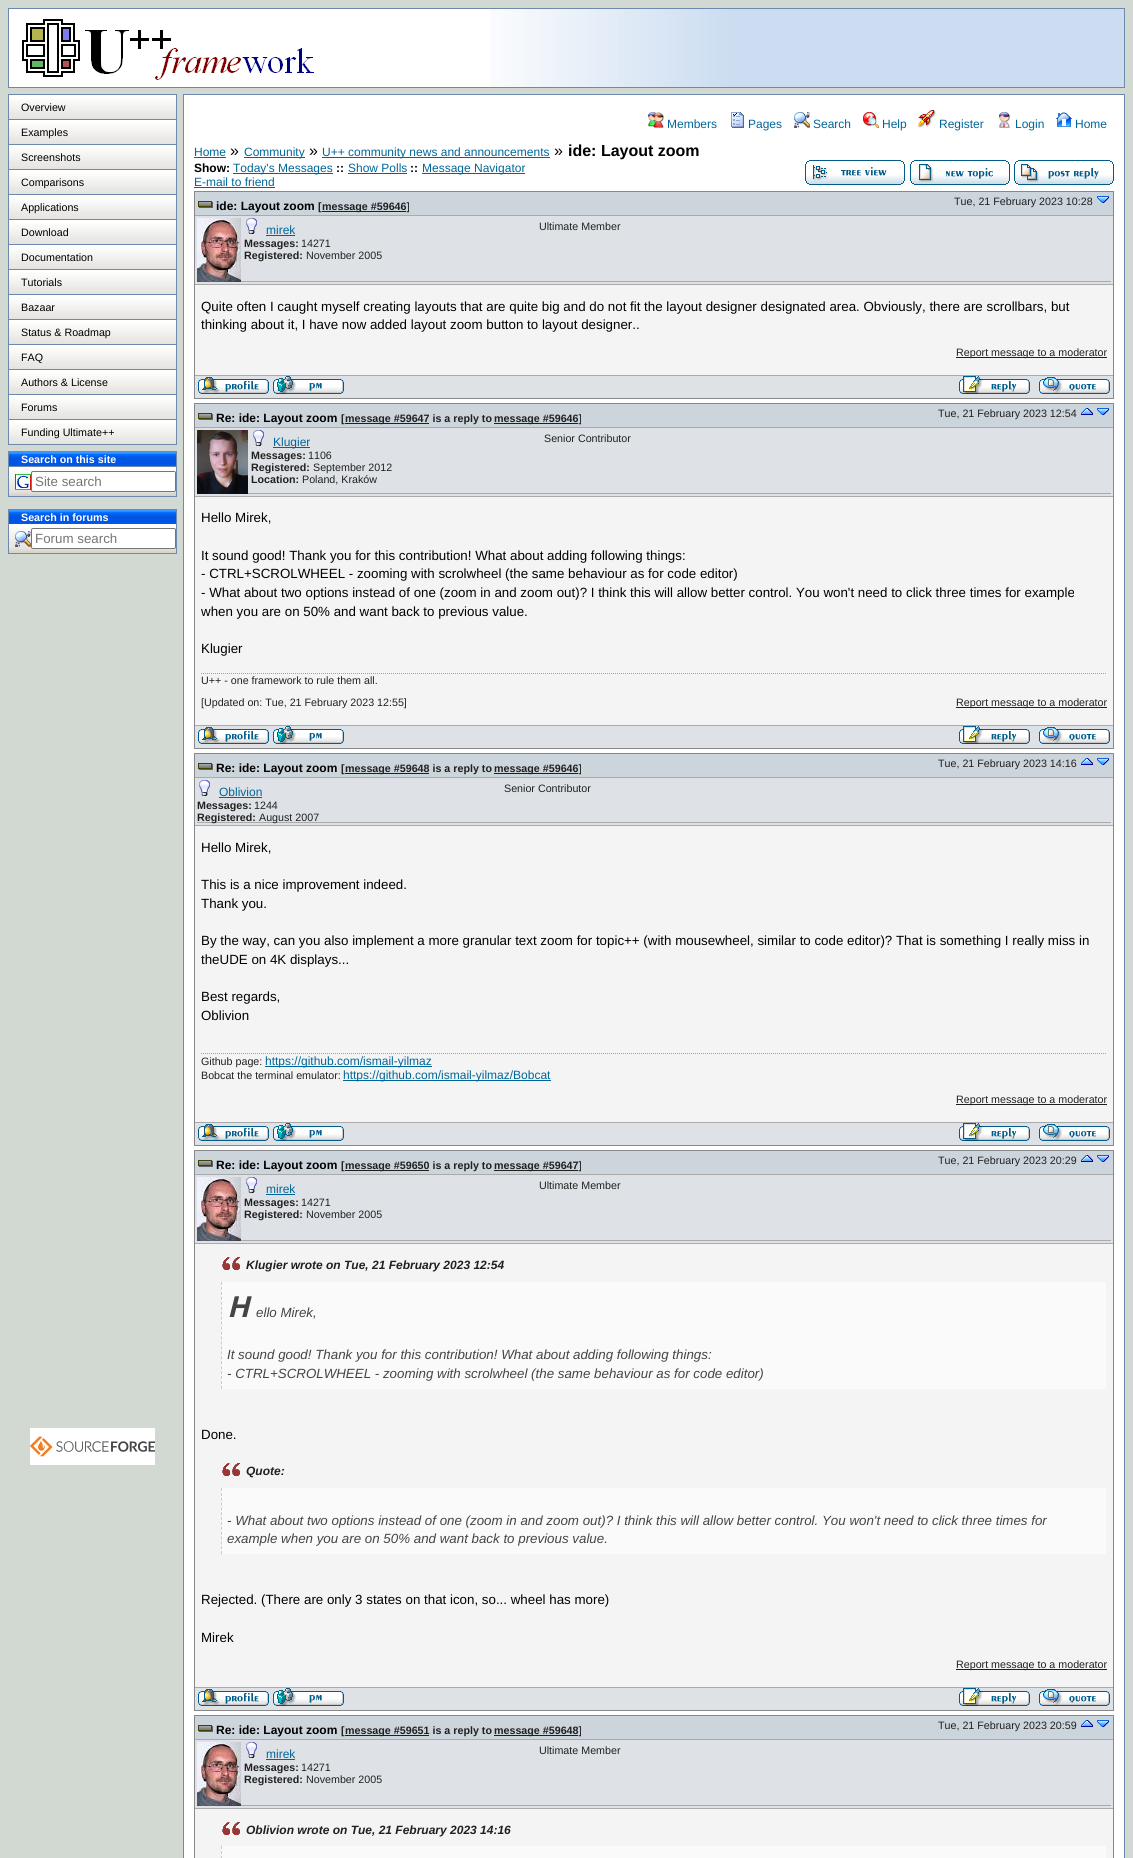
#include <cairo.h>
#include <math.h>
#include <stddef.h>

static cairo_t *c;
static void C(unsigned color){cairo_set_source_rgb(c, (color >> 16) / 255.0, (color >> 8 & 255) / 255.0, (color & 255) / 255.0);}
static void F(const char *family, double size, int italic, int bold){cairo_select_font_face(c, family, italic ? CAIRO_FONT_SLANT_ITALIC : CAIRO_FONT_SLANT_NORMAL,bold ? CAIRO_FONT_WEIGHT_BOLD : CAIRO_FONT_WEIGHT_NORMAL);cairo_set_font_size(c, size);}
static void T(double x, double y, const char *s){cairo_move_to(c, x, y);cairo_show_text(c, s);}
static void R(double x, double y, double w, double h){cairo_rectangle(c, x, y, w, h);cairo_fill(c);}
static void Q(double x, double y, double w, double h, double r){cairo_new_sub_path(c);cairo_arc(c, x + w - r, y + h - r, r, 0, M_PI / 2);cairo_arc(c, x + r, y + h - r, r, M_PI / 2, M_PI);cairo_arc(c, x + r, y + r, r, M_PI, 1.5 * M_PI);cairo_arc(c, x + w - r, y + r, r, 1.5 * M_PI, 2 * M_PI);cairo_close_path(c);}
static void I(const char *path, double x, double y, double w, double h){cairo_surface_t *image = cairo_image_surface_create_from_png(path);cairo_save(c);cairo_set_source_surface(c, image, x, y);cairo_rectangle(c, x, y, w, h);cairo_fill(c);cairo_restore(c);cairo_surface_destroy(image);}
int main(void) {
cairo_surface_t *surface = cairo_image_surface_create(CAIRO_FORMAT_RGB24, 1133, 1858);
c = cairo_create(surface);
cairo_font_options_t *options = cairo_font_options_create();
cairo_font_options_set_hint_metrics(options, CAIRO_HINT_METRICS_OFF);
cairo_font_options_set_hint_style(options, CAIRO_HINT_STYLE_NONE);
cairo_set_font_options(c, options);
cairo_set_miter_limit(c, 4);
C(0xd2d9d2);
cairo_paint(c);
C(0xffffff);
R(9,9,481,78);
cairo_rectangle(c,8.5,8.5,1116,79);
C(0x6e89ae);
cairo_set_line_width(c,1);
cairo_stroke(c);
I("1.png",22,19,292,61);
I("2.png",490,9,634,78);
C(0xffffff);
R(9,95,167,4);
cairo_rectangle(c,8.5,94.5,168,350);
C(0x6e89ae);
cairo_stroke(c);
I("3.png",9,99,167,20);
F("Liberation Sans",10.7,0,0);
C(0x000000);
T(21,111,"Overview");
I("4.png",9,120,167,24);
C(0x6e89ae);
R(9,119,167,1);
C(0x000000);
T(21,136,"Examples");
I("4.png",9,145,167,24);
C(0x6e89ae);
R(9,144,167,1);
C(0x000000);
T(21,161,"Screenshots");
I("4.png",9,170,167,24);
C(0x6e89ae);
R(9,169,167,1);
C(0x000000);
T(21,186,"Comparisons");
I("4.png",9,195,167,24);
C(0x6e89ae);
R(9,194,167,1);
C(0x000000);
T(21,211,"Applications");
I("4.png",9,220,167,24);
C(0x6e89ae);
R(9,219,167,1);
C(0x000000);
T(21,236,"Download");
I("4.png",9,245,167,24);
C(0x6e89ae);
R(9,244,167,1);
C(0x000000);
T(21,261,"Documentation");
I("4.png",9,270,167,24);
C(0x6e89ae);
R(9,269,167,1);
C(0x000000);
T(21,286,"Tutorials");
I("4.png",9,295,167,24);
C(0x6e89ae);
R(9,294,167,1);
C(0x000000);
T(21,311,"Bazaar");
I("4.png",9,320,167,24);
C(0x6e89ae);
R(9,319,167,1);
C(0x000000);
T(21,336,"Status & Roadmap");
I("4.png",9,345,167,24);
C(0x6e89ae);
R(9,344,167,1);
C(0x000000);
T(21,361,"FAQ");
I("4.png",9,370,167,24);
C(0x6e89ae);
R(9,369,167,1);
C(0x000000);
T(21,386,"Authors & License");
I("4.png",9,395,167,24);
C(0x6e89ae);
R(9,394,167,1);
C(0x000000);
T(21,411,"Forums");
I("4.png",9,420,167,24);
C(0x6e89ae);
R(9,419,167,1);
C(0x000000);
T(21,436,"Funding Ultimate++");
cairo_rectangle(c,8.5,451.5,168,45);
C(0x6e89ae);
cairo_stroke(c);
I("5.png",9,452,167,14);
F("Liberation Sans",10.7,0,1);
C(0xffffff);
T(21,463,"Search on this site");
I("6.png",9,467,167,29);
C(0x6e89ae);
R(9,466,167,1);
I("7.png",15,474,16,16);
C(0xffffff);
Q(31.5,471.5,144,20,1.5);
cairo_fill_preserve(c);
C(0x767676);
cairo_stroke(c);
F("Liberation Sans",13.33,0,0);
C(0x757575);
T(35,486,"Site search");
C(0xffffff);
R(9,524,167,4);
cairo_rectangle(c,8.5,509.5,168,44);
C(0x6e89ae);
cairo_stroke(c);
I("5.png",9,510,167,14);
F("Liberation Sans",10.7,0,1);
C(0xffffff);
T(21,521,"Search in forums");
I("8.png",9,528,167,25);
I("9.png",15,531,16,16);
Q(31.5,528.5,144,20,1.5);
cairo_fill_preserve(c);
C(0x767676);
cairo_stroke(c);
F("Liberation Sans",13.33,0,0);
C(0x757575);
T(35,543,"Forum search");
I("10.png",30,1428,125,37);
C(0xffffff);
cairo_rectangle(c,183.5,94.5,941,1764);
cairo_fill_preserve(c);
C(0x6e89ae);
cairo_stroke(c);
I("11.png",648,112,16,16);
F("Liberation Sans",12,0,0);
C(0x006699);
T(667,128,"Members");
I("12.png",731,112,13,16);
T(748,128,"Pages");
I("13.png",794,112,16,16);
T(813,128,"Search");
I("14.png",863,112,16,16);
T(882,128,"Help");
I("15.png",918,110,18,18);
T(939,128,"Register");
I("16.png",999,112,12,16);
T(1015,128,"Login");
I("17.png",1056,112,16,15);
T(1075,128,"Home");
T(194,156,"Home");
R(194,157,32,1);
F("Liberation Sans",16,0,0);
C(0x000000);
T(230,156,"»");
C(0x006699);
R(244,157,61,1);
F("Liberation Sans",12,0,0);
T(244,156,"Community");
F("Liberation Sans",16,0,0);
C(0x000000);
T(309,156,"»");
C(0x006699);
R(322,157,228,1);
F("Liberation Sans",12,0,0);
T(322,156,"U++ community news and announcements");
F("Liberation Sans",16,0,0);
C(0x000000);
T(554,156,"»");
F("Liberation Sans",16,0,1);
T(568,156,"ide: Layout zoom");
F("Liberation Sans",12,0,1);
T(194,172,"Show:");
C(0x006699);
R(233,173,100,1);
F("Liberation Sans",12,0,0);
T(233,172,"Today's Messages");
F("Liberation Sans",12,0,1);
C(0x000000);
T(336,172,"::");
F("Liberation Sans",12,0,0);
C(0x006699);
T(348,172,"Show Polls");
R(348,173,59,1);
F("Liberation Sans",12,0,1);
C(0x000000);
T(410,172,"::");
C(0x006699);
R(422,173,103,1);
F("Liberation Sans",12,0,0);
T(422,172,"Message Navigator");
T(194,186,"E-mail to friend");
R(194,187,81,1);
I("18.png",805,160,100,25);
I("19.png",910,160,100,25);
I("20.png",1014,160,100,25);
cairo_rectangle(c,194.5,191.5,919,207);
C(0x888888);
cairo_stroke(c);
C(0xccd4dc);
R(195,192,918,23);
C(0xaaaaaa);
R(195,215,918,1);
I("21.png",198,201,15,7);
F("Liberation Sans",12,0,1);
C(0x000000);
T(216,210,"ide: Layout zoom");
F("Liberation Sans",10.7,0,1);
C(0x202020);
T(318,210,"[");
R(322,211,84,1);
T(322,210,"message #59646]");
F("Liberation Sans",10.7,0,0);
T(954,205,"Tue, 21 February 2023 10:28");
I("22.png",1097,196,12,7);
C(0xdee2e6);
R(195,216,918,68);
C(0xaaaaaa);
R(195,284,918,1);
R(241,281,870,1);
I("23.png",197,218,44,64);
I("24.png",246,218,11,16);
F("Liberation Sans",12,0,0);
C(0x006699);
T(266,234,"mirek");
R(266,235,29,1);
F("Liberation Sans",10.7,0,1);
C(0x202020);
T(244,247,"Messages:");
F("Liberation Sans",10.7,0,0);
T(301,247,"14271");
F("Liberation Sans",10.7,0,1);
T(244,259,"Registered:");
F("Liberation Sans",10.7,0,0);
T(306,259,"November 2005");
T(539,230,"Ultimate Member");
C(0xf4f4f4);
R(195,285,918,90);
C(0xaaaaaa);
R(195,375,918,1);
F("Liberation Sans",13.33,0,0);
C(0x000000);
T(201,311,"Quite often I caught myself creating layouts that are quite big and do not fit the layout designer designated area. Obviously, there are scrollbars, but");
T(201,329,"thinking about it, I have now added layout zoom button to layout designer..");
C(0x202020);
R(956,357,151,1);
F("Liberation Sans",10.7,0,0);
T(956,356,"Report message to a moderator");
C(0xdee2e6);
R(195,376,918,22);
I("25.png",198,377,71,17);
I("26.png",273,376,71,18);
I("27.png",959,376,71,18);
I("28.png",1039,377,71,17);
cairo_rectangle(c,194.5,403.5,919,345);
C(0x888888);
cairo_stroke(c);
C(0xccd4dc);
R(195,404,918,23);
C(0xaaaaaa);
R(195,427,918,1);
I("21.png",198,413,15,7);
F("Liberation Sans",12,0,1);
C(0x000000);
T(216,422,"Re: ide: Layout zoom");
F("Liberation Sans",10.7,0,1);
C(0x202020);
T(341,422,"[");
R(345,423,84,1);
T(345,422,"message #59647 is a reply to");
R(494,423,84,1);
T(494,422,"message #59646]");
F("Liberation Sans",10.7,0,0);
T(938,417,"Tue, 21 February 2023 12:54");
I("29.png",1081,408,12,7);
I("22.png",1097,408,12,7);
C(0xdee2e6);
R(195,428,918,68);
C(0xaaaaaa);
R(195,496,918,1);
R(248,493,863,1);
I("30.png",197,430,51,64);
I("24.png",253,430,11,16);
C(0x006699);
R(273,447,37,1);
F("Liberation Sans",12,0,0);
T(273,446,"Klugier");
F("Liberation Sans",10.7,0,1);
C(0x202020);
T(251,459,"Messages:");
F("Liberation Sans",10.7,0,0);
T(308,459,"1106");
F("Liberation Sans",10.7,0,1);
T(251,471,"Registered:");
F("Liberation Sans",10.7,0,0);
T(313,471,"September 2012");
F("Liberation Sans",10.7,0,1);
T(251,483,"Location:");
F("Liberation Sans",10.7,0,0);
T(302,483,"Poland, Kraków");
T(544,442,"Senior Contributor");
C(0xf4f4f4);
R(195,497,918,228);
C(0xaaaaaa);
R(195,725,918,1);
F("Liberation Sans",13.33,0,0);
C(0x000000);
T(201,522,"Hello Mirek,");
T(201,560,"It sound good! Thank you for this contribution! What about adding following things:");
T(201,578,"- CTRL+SCROLWHEEL - zooming with scrolwheel (the same behaviour as for code editor)");
T(201,597,"- What about two options instead of one (zoom in and zoom out)? I think this will allow better control. You won't need to click three times for example");
T(201,616,"when you are on 50% and want back to previous value.");
T(201,653,"Klugier");
cairo_new_path(c);
cairo_move_to(c,201,673.5);
cairo_line_to(c,1107,673.5);
C(0xa0a0a0);
cairo_set_dash(c,(double[]){1,1},2,0);
cairo_stroke(c);
F("Liberation Sans",10.7,0,0);
C(0x202020);
T(201,684,"U++ - one framework to rule them all.");
T(201,706,"[Updated on: Tue, 21 February 2023 12:55]");
R(956,707,151,1);
T(956,706,"Report message to a moderator");
C(0xdee2e6);
R(195,726,918,22);
I("25.png",198,727,71,17);
I("26.png",273,726,71,18);
I("27.png",959,726,71,18);
I("28.png",1039,727,71,17);
cairo_rectangle(c,194.5,753.5,919,392);
C(0x888888);
cairo_set_dash(c,NULL,0,0);
cairo_stroke(c);
C(0xccd4dc);
R(195,754,918,23);
C(0xaaaaaa);
R(195,777,918,1);
I("21.png",198,763,15,7);
F("Liberation Sans",12,0,1);
C(0x000000);
T(216,772,"Re: ide: Layout zoom");
F("Liberation Sans",10.7,0,1);
C(0x202020);
T(341,772,"[");
R(345,773,84,1);
T(345,772,"message #59648 is a reply to");
R(494,773,84,1);
T(494,772,"message #59646]");
F("Liberation Sans",10.7,0,0);
T(938,767,"Tue, 21 February 2023 14:16");
I("29.png",1081,758,12,7);
I("22.png",1097,758,12,7);
C(0xdee2e6);
R(195,778,918,47);
C(0xaaaaaa);
R(195,825,918,1);
R(197,822,914,1);
I("24.png",199,780,11,16);
F("Liberation Sans",12,0,0);
C(0x006699);
T(219,796,"Oblivion");
R(219,797,43,1);
F("Liberation Sans",10.7,0,1);
C(0x202020);
T(197,809,"Messages:");
F("Liberation Sans",10.7,0,0);
T(254,809,"1244");
F("Liberation Sans",10.7,0,1);
T(197,821,"Registered:");
F("Liberation Sans",10.7,0,0);
T(259,821,"August 2007");
T(504,792,"Senior Contributor");
C(0xf4f4f4);
R(195,826,918,296);
C(0xaaaaaa);
R(195,1122,918,1);
F("Liberation Sans",13.33,0,0);
C(0x000000);
T(201,852,"Hello Mirek,");
T(201,889,"This is a nice improvement indeed.");
T(201,908,"Thank you.");
T(201,945,"By the way, can you also implement a more granular text zoom for topic++ (with mousewheel, similar to code editor)? That is something I really miss in");
T(201,964,"theUDE on 4K displays...");
T(201,1001,"Best regards,");
T(201,1020,"Oblivion");
cairo_new_path(c);
cairo_move_to(c,201,1053.5);
cairo_line_to(c,1107,1053.5);
C(0xa0a0a0);
cairo_set_dash(c,(double[]){1,1},2,0);
cairo_stroke(c);
F("Liberation Sans",10.7,0,0);
C(0x202020);
T(201,1065,"Github page:");
C(0x006699);
R(265,1066,167,1);
F("Liberation Sans",12,0,0);
T(265,1065,"https://github.com/ismail-yilmaz");
F("Liberation Sans",10.7,0,0);
C(0x202020);
T(201,1079,"Bobcat the terminal emulator:");
C(0x006699);
R(343,1080,208,1);
F("Liberation Sans",12,0,0);
T(343,1079,"https://github.com/ismail-yilmaz/Bobcat");
C(0x202020);
R(956,1104,151,1);
F("Liberation Sans",10.7,0,0);
T(956,1103,"Report message to a moderator");
C(0xdee2e6);
R(195,1123,918,22);
I("25.png",198,1124,71,17);
I("26.png",273,1123,71,18);
I("27.png",959,1123,71,18);
I("28.png",1039,1124,71,17);
cairo_rectangle(c,194.5,1150.5,919,560);
C(0x888888);
cairo_set_dash(c,NULL,0,0);
cairo_stroke(c);
C(0xccd4dc);
R(195,1151,918,23);
C(0xaaaaaa);
R(195,1174,918,1);
I("21.png",198,1160,15,7);
F("Liberation Sans",12,0,1);
C(0x000000);
T(216,1169,"Re: ide: Layout zoom");
F("Liberation Sans",10.7,0,1);
C(0x202020);
T(341,1169,"[");
R(345,1170,84,1);
T(345,1169,"message #59650 is a reply to");
R(494,1170,84,1);
T(494,1169,"message #59647]");
F("Liberation Sans",10.7,0,0);
T(938,1164,"Tue, 21 February 2023 20:29");
I("29.png",1081,1155,12,7);
I("22.png",1097,1155,12,7);
C(0xdee2e6);
R(195,1175,918,68);
C(0xaaaaaa);
R(195,1243,918,1);
R(241,1240,870,1);
I("23.png",197,1177,44,64);
I("24.png",246,1177,11,16);
F("Liberation Sans",12,0,0);
C(0x006699);
T(266,1193,"mirek");
R(266,1194,29,1);
F("Liberation Sans",10.7,0,1);
C(0x202020);
T(244,1206,"Messages:");
F("Liberation Sans",10.7,0,0);
T(301,1206,"14271");
F("Liberation Sans",10.7,0,1);
T(244,1218,"Registered:");
F("Liberation Sans",10.7,0,0);
T(306,1218,"November 2005");
T(539,1189,"Ultimate Member");
C(0xf4f4f4);
R(195,1244,918,443);
C(0xaaaaaa);
R(195,1687,918,1);
I("31.png",222,1257,18,13);
F("Liberation Sans",12,1,1);
C(0x202020);
T(246,1269,"Klugier wrote on Tue, 21 February 2023 12:54");
C(0xfafafa);
R(221,1282,885,107);
cairo_new_path(c);
cairo_move_to(c,221.5,1282);
cairo_line_to(c,221.5,1389);
C(0xc2cdd6);
cairo_set_dash(c,(double[]){3,1.95},2,0);
cairo_stroke(c);
F("Noto Sans",29,1,1);
C(0x444444);
T(227,1317,"H");
F("Liberation Sans",13.33,1,0);
T(256,1317,"ello Mirek,");
T(227,1359,"It sound good! Thank you for this contribution! What about adding following things:");
T(227,1378,"- CTRL+SCROLWHEEL - zooming with scrolwheel (the same behaviour as for code editor)");
F("Liberation Sans",13.33,0,0);
C(0x000000);
T(201,1439,"Done.");
I("31.png",222,1463,18,13);
F("Liberation Sans",12,1,1);
C(0x202020);
T(246,1475,"Quote:");
C(0xfafafa);
R(221,1488,885,66);
cairo_new_path(c);
cairo_move_to(c,221.5,1488);
cairo_line_to(c,221.5,1554);
C(0xc2cdd6);
cairo_set_dash(c,(double[]){3,1.85},2,0);
cairo_stroke(c);
F("Liberation Sans",13.33,1,0);
C(0x444444);
T(227,1525,"- What about two options instead of one (zoom in and zoom out)? I think this will allow better control. You won't need to click three times for");
T(227,1543,"example when you are on 50% and want back to previous value.");
F("Liberation Sans",13.33,0,0);
C(0x000000);
T(201,1604,"Rejected. (There are only 3 states on that icon, so... wheel has more)");
T(201,1642,"Mirek");
C(0x202020);
R(956,1669,151,1);
F("Liberation Sans",10.7,0,0);
T(956,1668,"Report message to a moderator");
C(0xdee2e6);
R(195,1688,918,22);
I("25.png",198,1689,71,17);
I("26.png",273,1688,71,18);
I("27.png",959,1688,71,18);
I("28.png",1039,1689,71,17);
cairo_rectangle(c,194.5,1715.5,919,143);
C(0x888888);
cairo_set_dash(c,NULL,0,0);
cairo_stroke(c);
C(0xccd4dc);
R(195,1716,918,23);
C(0xaaaaaa);
R(195,1739,918,1);
I("21.png",198,1725,15,7);
F("Liberation Sans",12,0,1);
C(0x000000);
T(216,1734,"Re: ide: Layout zoom");
F("Liberation Sans",10.7,0,1);
C(0x202020);
T(341,1734,"[");
R(345,1735,84,1);
T(345,1734,"message #59651 is a reply to");
R(494,1735,84,1);
T(494,1734,"message #59648]");
F("Liberation Sans",10.7,0,0);
T(938,1729,"Tue, 21 February 2023 20:59");
I("29.png",1081,1720,12,7);
I("22.png",1097,1720,12,7);
C(0xdee2e6);
R(195,1740,918,68);
C(0xaaaaaa);
R(195,1808,918,1);
R(241,1805,870,1);
I("23.png",197,1742,44,64);
I("24.png",246,1742,11,16);
F("Liberation Sans",12,0,0);
C(0x006699);
T(266,1758,"mirek");
R(266,1759,29,1);
F("Liberation Sans",10.7,0,1);
C(0x202020);
T(244,1771,"Messages:");
F("Liberation Sans",10.7,0,0);
T(301,1771,"14271");
F("Liberation Sans",10.7,0,1);
T(244,1783,"Registered:");
F("Liberation Sans",10.7,0,0);
T(306,1783,"November 2005");
T(539,1754,"Ultimate Member");
C(0xf4f4f4);
R(195,1809,918,49);
I("31.png",222,1822,18,13);
F("Liberation Sans",12,1,1);
C(0x202020);
T(246,1834,"Oblivion wrote on Tue, 21 February 2023 14:16");
C(0xfafafa);
R(221,1846,885,12);
cairo_new_path(c);
cairo_move_to(c,221.5,1846);
cairo_line_to(c,221.5,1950);
C(0xc2cdd6);
cairo_set_dash(c,(double[]){3,2.05},2,0);
cairo_stroke(c);
cairo_surface_write_to_png(surface, "o.png");
cairo_font_options_destroy(options);
cairo_destroy(c);
cairo_surface_destroy(surface);
return 0;
}
